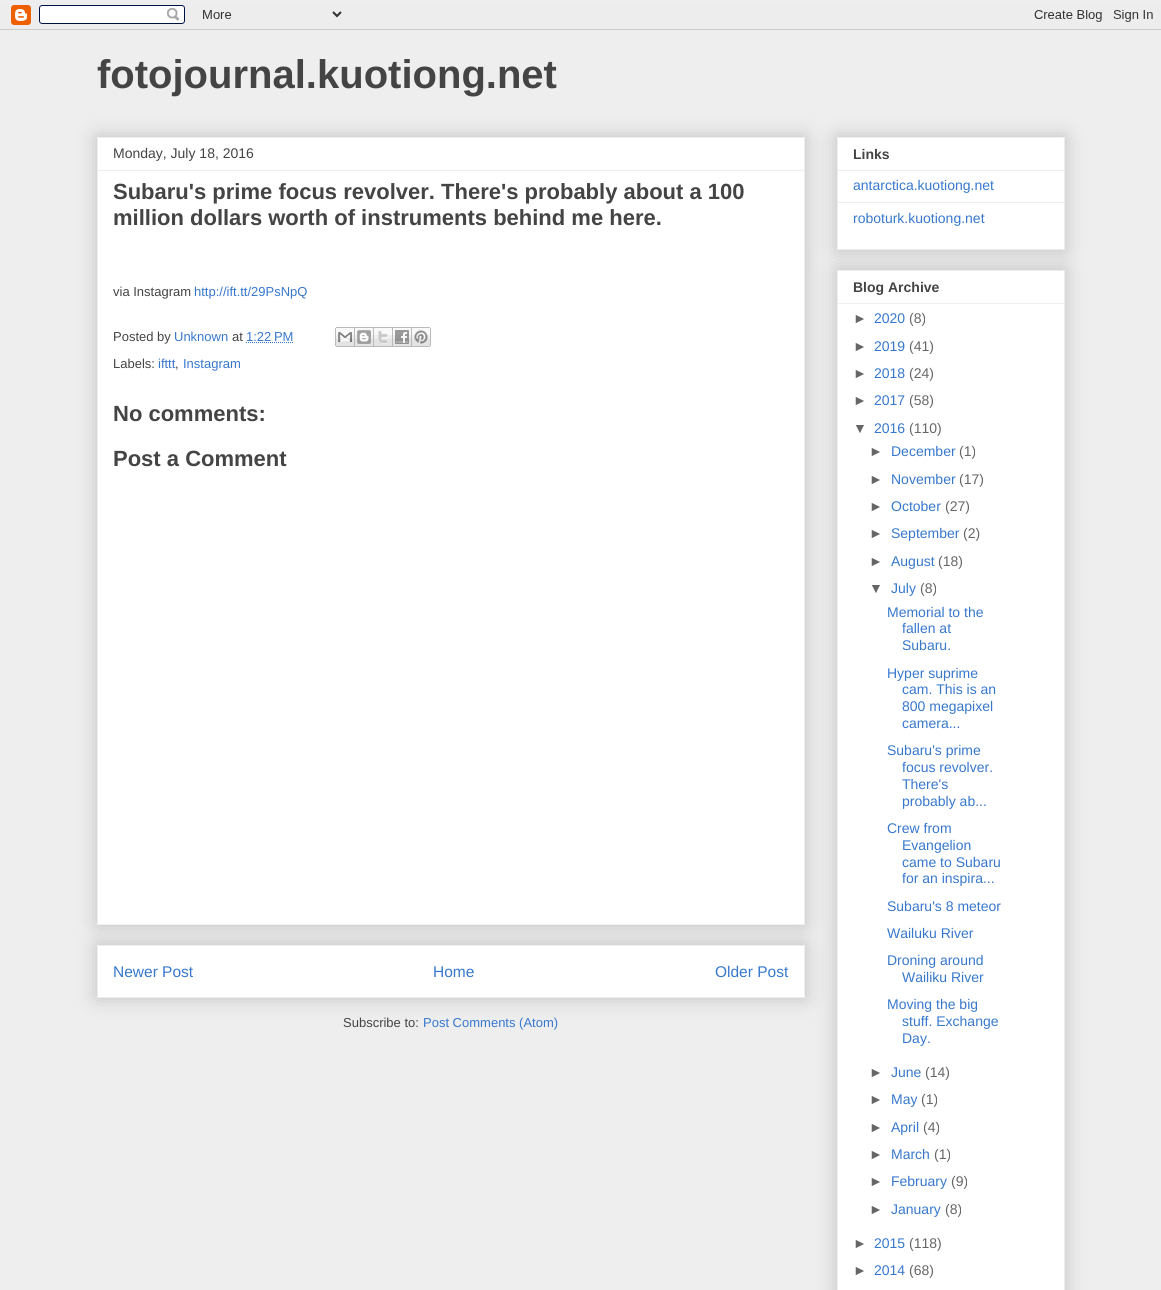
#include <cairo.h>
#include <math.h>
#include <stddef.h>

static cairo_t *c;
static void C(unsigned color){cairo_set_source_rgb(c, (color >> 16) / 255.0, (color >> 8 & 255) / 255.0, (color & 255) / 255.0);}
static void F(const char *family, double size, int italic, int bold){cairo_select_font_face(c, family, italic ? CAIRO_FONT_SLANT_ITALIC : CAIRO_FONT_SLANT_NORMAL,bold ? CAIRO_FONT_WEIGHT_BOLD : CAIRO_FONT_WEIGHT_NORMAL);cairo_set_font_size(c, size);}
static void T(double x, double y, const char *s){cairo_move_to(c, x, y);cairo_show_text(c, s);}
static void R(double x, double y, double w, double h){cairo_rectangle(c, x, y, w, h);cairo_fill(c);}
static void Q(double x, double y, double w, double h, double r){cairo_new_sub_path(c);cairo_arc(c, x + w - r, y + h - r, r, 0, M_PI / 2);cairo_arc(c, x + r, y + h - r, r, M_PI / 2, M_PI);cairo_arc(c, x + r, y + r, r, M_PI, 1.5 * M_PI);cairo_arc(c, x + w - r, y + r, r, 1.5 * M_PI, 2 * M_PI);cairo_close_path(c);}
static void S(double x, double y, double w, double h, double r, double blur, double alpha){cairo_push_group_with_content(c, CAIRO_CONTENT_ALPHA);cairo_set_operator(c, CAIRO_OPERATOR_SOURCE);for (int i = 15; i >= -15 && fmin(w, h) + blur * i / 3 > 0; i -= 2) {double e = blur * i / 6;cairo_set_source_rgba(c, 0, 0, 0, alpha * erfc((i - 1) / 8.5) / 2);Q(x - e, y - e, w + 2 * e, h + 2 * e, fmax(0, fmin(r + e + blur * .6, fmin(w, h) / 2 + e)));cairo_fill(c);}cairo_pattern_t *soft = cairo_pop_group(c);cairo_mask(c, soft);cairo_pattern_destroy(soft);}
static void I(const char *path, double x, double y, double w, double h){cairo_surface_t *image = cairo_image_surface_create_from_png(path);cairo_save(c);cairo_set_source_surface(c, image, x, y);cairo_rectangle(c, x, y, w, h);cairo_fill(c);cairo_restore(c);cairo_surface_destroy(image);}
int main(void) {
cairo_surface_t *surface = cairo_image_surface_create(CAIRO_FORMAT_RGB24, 1161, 1290);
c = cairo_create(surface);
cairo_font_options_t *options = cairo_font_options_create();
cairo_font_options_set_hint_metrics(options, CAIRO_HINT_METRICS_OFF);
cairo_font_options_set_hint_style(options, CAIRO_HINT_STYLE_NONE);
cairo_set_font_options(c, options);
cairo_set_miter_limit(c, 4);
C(0xeeeeee);
cairo_paint(c);
I("1.png",0,5,1161,25);
F("Liberation Sans",40,0,1);
C(0x444444);
T(97,88,"fotojournal.kuotiong.net");
C(0x000000);
S(97,945,708,53,0,10,.2);
C(0xffffff);
cairo_rectangle(c,97.5,945.5,707,52);
cairo_fill_preserve(c);
C(0xeeeeee);
cairo_set_line_width(c,1);
cairo_stroke(c);
C(0x000000);
S(97,137,708,788,0,10,.2);
C(0xffffff);
cairo_rectangle(c,97.5,137.5,707,787);
cairo_fill_preserve(c);
C(0xeeeeee);
cairo_stroke(c);
F("Liberation Sans",14,0,0);
C(0x444444);
T(113,158,"Monday, July 18, 2016");
C(0xeeeeee);
R(98,170,706,1);
F("Liberation Sans",22,0,1);
C(0x444444);
T(113,199,"Subaru's prime focus revolver. There's probably about a 100");
T(113,225,"million dollars worth of instruments behind me here.");
F("Liberation Sans",13,0,0);
T(113,296,"via Instagram");
C(0x3778cd);
T(194,296,"http://ift.tt/29PsNpQ");
C(0x444444);
T(113,341,"Posted by");
C(0x3778cd);
T(174,341,"Unknown");
C(0x444444);
T(232,341,"at");
C(0x3778cd);
T(246,341,"1:22 PM");
cairo_new_path(c);
cairo_move_to(c,246,342.5);
cairo_line_to(c,293.5,342.5);
cairo_set_dash(c,(double[]){1,1},2,0);
cairo_stroke(c);
I("2.png",335,327,20,20);
I("3.png",355,327,19,20);
I("4.png",374,327,19,20);
I("5.png",393,327,19,20);
I("6.png",412,327,19,20);
C(0x444444);
T(113,368,"Labels:");
C(0x3778cd);
T(158,368,"ifttt");
C(0x444444);
T(175,368,",");
C(0x3778cd);
T(183,368,"Instagram");
F("Liberation Sans",22,0,1);
C(0x444444);
T(113,421,"No comments:");
T(113,466,"Post a Comment");
F("Liberation Sans",15.5,0,0);
C(0x3778cd);
T(113,977,"Newer Post");
T(433,977,"Home");
T(715,977,"Older Post");
F("Liberation Sans",13,0,0);
C(0x444444);
T(343,1027,"Subscribe to:");
C(0x3778cd);
T(423,1027,"Post Comments (Atom)");
C(0x000000);
S(837,137,228,113,0,10,.2);
C(0xffffff);
cairo_rectangle(c,837.5,137.5,227,112);
cairo_fill_preserve(c);
C(0xeeeeee);
cairo_set_dash(c,NULL,0,0);
cairo_stroke(c);
F("Liberation Sans",14,0,1);
C(0x444444);
T(853,159,"Links");
C(0xeeeeee);
R(838,170,226,1);
F("Liberation Sans",14,0,0);
C(0x3778cd);
T(853,190,"antarctica.kuotiong.net");
C(0xeeeeee);
R(838,202,226,1);
C(0x3778cd);
T(853,223,"roboturk.kuotiong.net");
C(0x000000);
S(837,270,228,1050,0,10,.2);
C(0xffffff);
cairo_rectangle(c,837.5,270.5,227,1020);
cairo_fill_preserve(c);
C(0xeeeeee);
cairo_stroke(c);
F("Liberation Sans",14,0,1);
C(0x444444);
T(853,292,"Blog Archive");
C(0xeeeeee);
R(838,303,226,1);
F("Liberation Sans",14,0,0);
C(0x666666);
T(853,323,"►");
C(0x3778cd);
T(874,323,"2020");
C(0x666666);
T(909,323,"(8)");
T(853,351,"►");
C(0x3778cd);
T(874,351,"2019");
C(0x666666);
T(909,351,"(41)");
T(853,378,"►");
C(0x3778cd);
T(874,378,"2018");
C(0x666666);
T(909,378,"(24)");
T(853,405,"►");
C(0x3778cd);
T(874,405,"2017");
C(0x666666);
T(909,405,"(58)");
T(853,433,"▼");
C(0x3778cd);
T(874,433,"2016");
C(0x666666);
T(909,433,"(110)");
T(869,456,"►");
C(0x3778cd);
T(891,456,"December");
C(0x666666);
T(959,456,"(1)");
T(869,484,"►");
C(0x3778cd);
T(891,484,"November");
C(0x666666);
T(959,484,"(17)");
T(869,511,"►");
C(0x3778cd);
T(891,511,"October");
C(0x666666);
T(945,511,"(27)");
T(869,538,"►");
C(0x3778cd);
T(891,538,"September");
C(0x666666);
T(963,538,"(2)");
T(869,566,"►");
C(0x3778cd);
T(891,566,"August");
C(0x666666);
T(938,566,"(18)");
T(869,593,"▼");
C(0x3778cd);
T(891,593,"July");
C(0x666666);
T(920,593,"(8)");
C(0x3778cd);
T(887,617,"Memorial to the");
T(902,633,"fallen at");
T(902,650,"Subaru.");
T(887,678,"Hyper suprime");
T(902,694,"cam. This is an");
T(902,711,"800 megapixel");
T(902,728,"camera...");
T(887,755,"Subaru's prime");
T(902,772,"focus revolver.");
T(902,789,"There's");
T(902,806,"probably ab...");
T(887,833,"Crew from");
T(902,850,"Evangelion");
T(902,867,"came to Subaru");
T(902,883,"for an inspira...");
T(887,911,"Subaru's 8 meteor");
T(887,938,"Wailuku River");
T(887,965,"Droning around");
T(902,982,"Wailiku River");
T(887,1009,"Moving the big");
T(902,1026,"stuff. Exchange");
T(902,1043,"Day.");
C(0x666666);
T(869,1077,"►");
C(0x3778cd);
T(891,1077,"June");
C(0x666666);
T(925,1077,"(14)");
T(869,1104,"►");
C(0x3778cd);
T(891,1104,"May");
C(0x666666);
T(921,1104,"(1)");
T(869,1132,"►");
C(0x3778cd);
T(891,1132,"April");
C(0x666666);
T(923,1132,"(4)");
T(869,1159,"►");
C(0x3778cd);
T(891,1159,"March");
C(0x666666);
T(934,1159,"(1)");
T(869,1186,"►");
C(0x3778cd);
T(891,1186,"February");
C(0x666666);
T(951,1186,"(9)");
T(869,1214,"►");
C(0x3778cd);
T(891,1214,"January");
C(0x666666);
T(945,1214,"(8)");
T(853,1248,"►");
C(0x3778cd);
T(874,1248,"2015");
C(0x666666);
T(909,1248,"(118)");
T(853,1275,"►");
C(0x3778cd);
T(874,1275,"2014");
C(0x666666);
T(909,1275,"(68)");
cairo_surface_write_to_png(surface, "o.png");
cairo_font_options_destroy(options);
cairo_destroy(c);
cairo_surface_destroy(surface);
return 0;
}
